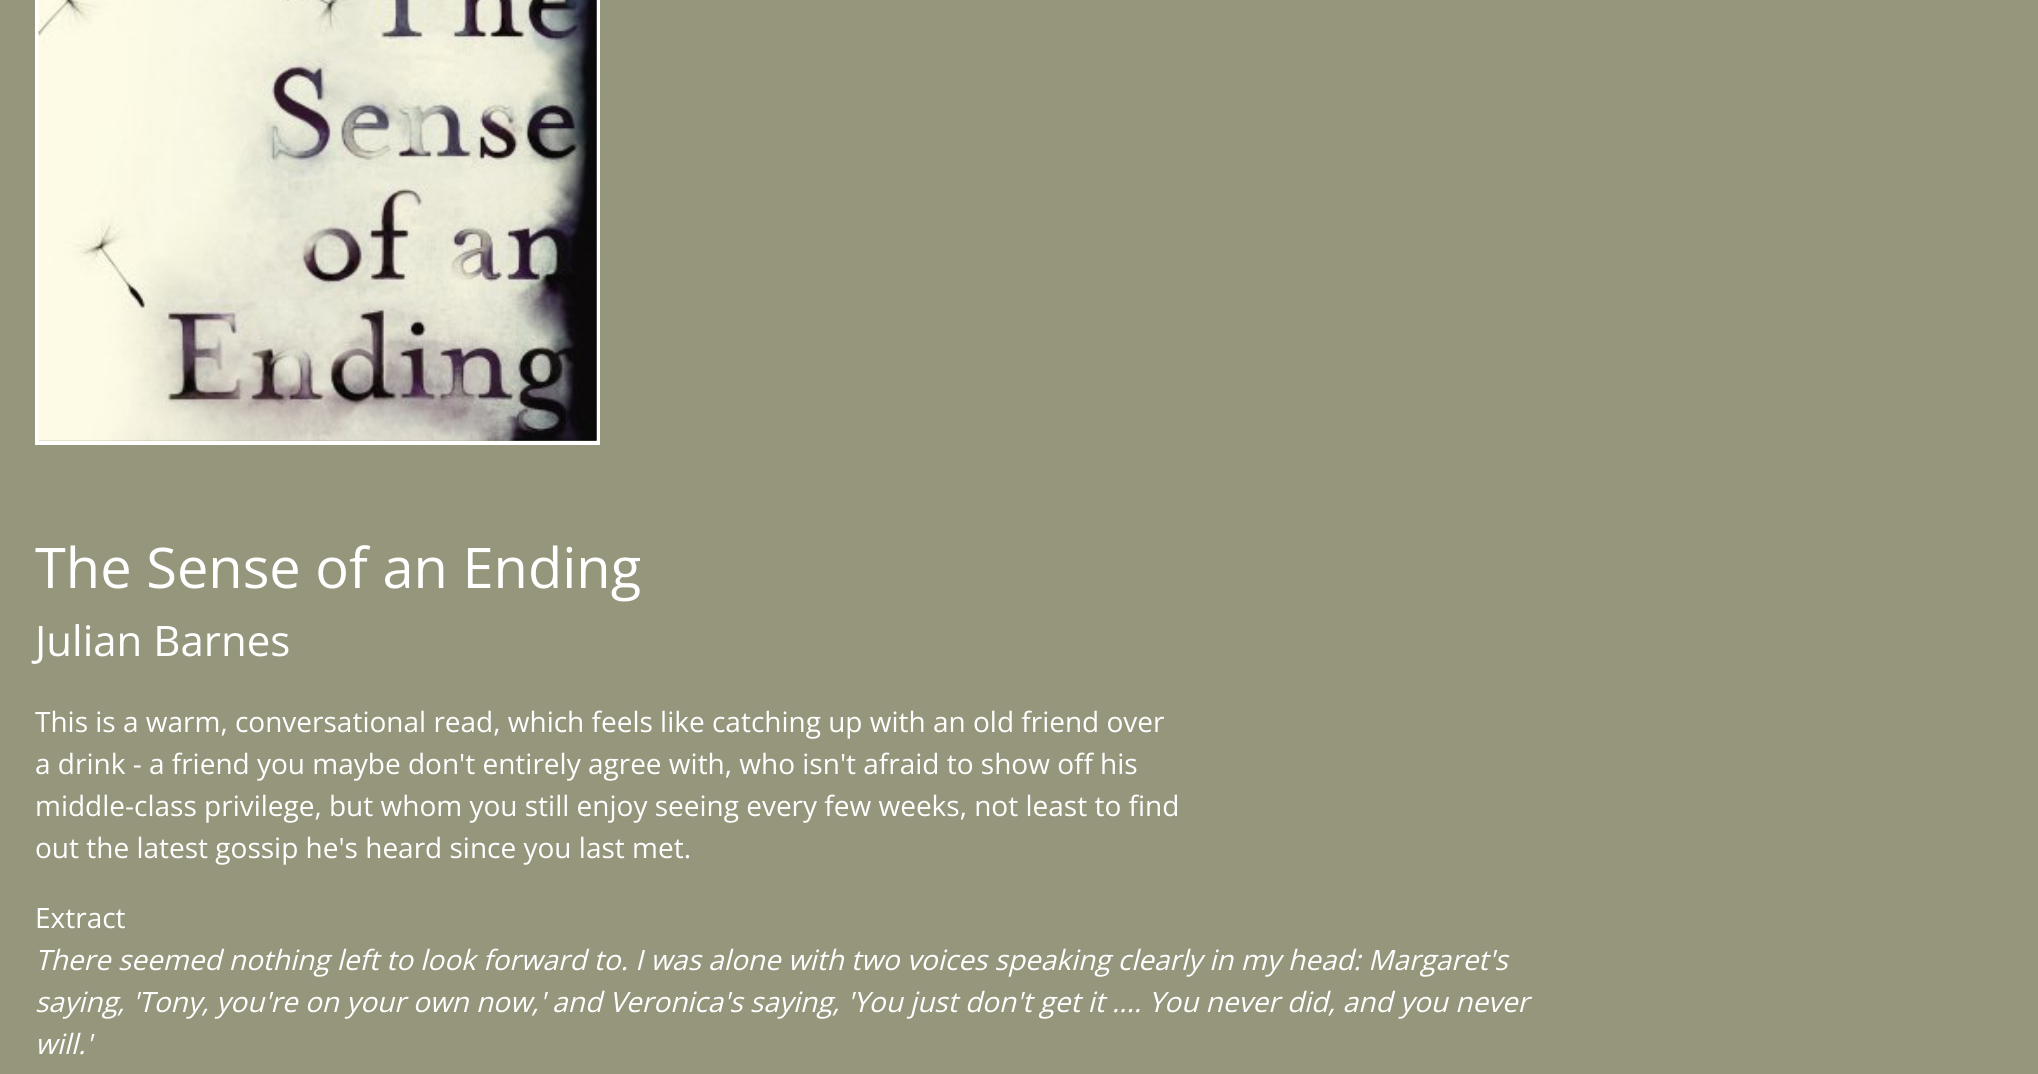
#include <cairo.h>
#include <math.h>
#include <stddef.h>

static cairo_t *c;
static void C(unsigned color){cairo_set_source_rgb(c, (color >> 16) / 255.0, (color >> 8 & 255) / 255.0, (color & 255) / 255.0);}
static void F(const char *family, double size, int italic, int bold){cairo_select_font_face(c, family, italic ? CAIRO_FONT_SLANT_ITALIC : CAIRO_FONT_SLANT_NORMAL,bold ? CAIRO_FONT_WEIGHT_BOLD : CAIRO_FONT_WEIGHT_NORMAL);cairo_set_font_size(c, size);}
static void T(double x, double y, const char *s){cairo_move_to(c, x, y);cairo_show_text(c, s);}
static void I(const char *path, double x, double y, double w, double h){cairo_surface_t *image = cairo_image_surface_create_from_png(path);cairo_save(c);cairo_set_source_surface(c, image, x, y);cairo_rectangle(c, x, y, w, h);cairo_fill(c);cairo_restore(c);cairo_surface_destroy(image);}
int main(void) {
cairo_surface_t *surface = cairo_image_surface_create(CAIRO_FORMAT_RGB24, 2038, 1074);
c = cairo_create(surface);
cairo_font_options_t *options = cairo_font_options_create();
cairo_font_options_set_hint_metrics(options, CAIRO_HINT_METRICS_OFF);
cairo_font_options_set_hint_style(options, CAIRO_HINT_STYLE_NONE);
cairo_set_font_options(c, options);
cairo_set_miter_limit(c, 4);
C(0x96967d);
cairo_paint(c);
cairo_rectangle(c,37,-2,561,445);
C(0xffffff);
cairo_set_line_width(c,4);
cairo_stroke(c);
I("1.png",38,0,559,441);
F("Open Sans",56,0,0);
T(35,588,"The Sense of an Ending");
F("Open Sans",42,0,0);
T(35,656,"Julian Barnes");
F("Open Sans",28,0,0);
T(35,732,"This is a warm, conversational read, which feels like catching up with an old friend over");
T(35,774,"a drink - a friend you maybe don't entirely agree with, who isn't afraid to show off his");
T(35,816,"middle-class privilege, but whom you still enjoy seeing every few weeks, not least to find");
T(35,858,"out the latest gossip he's heard since you last met.");
T(35,928,"Extract");
F("Open Sans",28,1,0);
T(35,970,"There seemed nothing left to look forward to. I was alone with two voices speaking clearly in my head: Margaret's");
T(35,1012,"saying, 'Tony, you're on your own now,' and Veronica's saying, 'You just don't get it .... You never did, and you never");
T(35,1054,"will.'");
cairo_surface_write_to_png(surface, "o.png");
cairo_font_options_destroy(options);
cairo_destroy(c);
cairo_surface_destroy(surface);
return 0;
}
